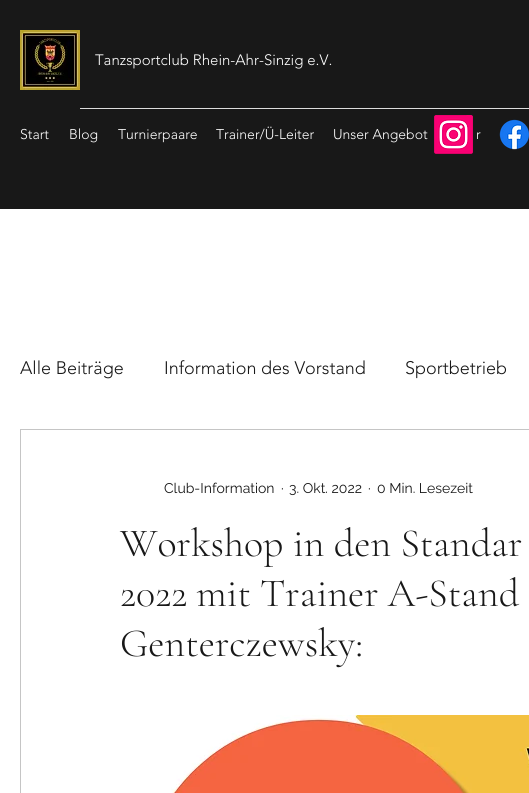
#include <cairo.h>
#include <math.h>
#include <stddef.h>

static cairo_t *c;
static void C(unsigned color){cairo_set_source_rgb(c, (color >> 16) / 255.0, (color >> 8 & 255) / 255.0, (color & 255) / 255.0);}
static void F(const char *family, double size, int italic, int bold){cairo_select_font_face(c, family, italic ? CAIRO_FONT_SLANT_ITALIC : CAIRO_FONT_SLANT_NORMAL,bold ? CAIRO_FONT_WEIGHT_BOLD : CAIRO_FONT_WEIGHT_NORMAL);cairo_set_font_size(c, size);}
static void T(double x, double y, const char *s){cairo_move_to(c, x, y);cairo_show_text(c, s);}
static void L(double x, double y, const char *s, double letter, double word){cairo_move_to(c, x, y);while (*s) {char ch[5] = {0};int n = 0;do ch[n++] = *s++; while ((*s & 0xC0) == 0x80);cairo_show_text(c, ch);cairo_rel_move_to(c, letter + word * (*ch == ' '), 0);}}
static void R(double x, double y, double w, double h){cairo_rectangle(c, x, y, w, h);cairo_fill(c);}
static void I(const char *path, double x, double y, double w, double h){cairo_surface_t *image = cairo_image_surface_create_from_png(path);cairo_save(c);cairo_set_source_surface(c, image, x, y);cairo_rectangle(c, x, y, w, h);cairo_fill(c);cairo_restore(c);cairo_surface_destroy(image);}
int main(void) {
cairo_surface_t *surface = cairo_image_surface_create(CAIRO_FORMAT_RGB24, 529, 793);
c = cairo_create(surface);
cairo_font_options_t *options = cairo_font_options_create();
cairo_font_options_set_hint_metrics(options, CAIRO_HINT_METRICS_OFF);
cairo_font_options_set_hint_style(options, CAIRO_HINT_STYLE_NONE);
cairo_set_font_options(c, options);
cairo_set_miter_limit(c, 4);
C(0xffffff);
cairo_paint(c);
C(0x181818);
R(0,0,529,209);
I("1.png",20,30,60,60);
F("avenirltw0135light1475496 Light",15,0,0);
C(0xffffff);
T(95,65,"Tanzsportclub Rhein-Ahr-Sinzig e.V.");
C(0xdcdcdc);
R(80,108,449,1);
F("avenirltw0135light1475496 Light",14,0,0);
C(0xffffff);
T(20,139,"Start");
T(69,139,"Blog");
T(118,139,"Turnierpaare");
T(216,139,"Trainer/Ü-Leiter");
T(333,139,"Unser Angebot");
T(476,139,"r");
I("2.png",434,115,39,39);
I("3.png",499,119,30,31);
F("avenirltw0135light1475496 Light",18,0,0);
C(0x181818);
T(20,374,"Alle Beiträge");
T(164,374,"Information des Vorstand");
T(405,374,"Sportbetrieb");
cairo_rectangle(c,20.5,429.5,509,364);
C(0xc5c5c5);
cairo_set_line_width(c,1);
cairo_stroke(c);
F("Raleway",14,0,0);
C(0x181818);
T(164,493,"Club-Information");
T(281,493,"·");
T(289,493,"3. Okt. 2022");
T(368,493,"·");
T(377,493,"0 Min. Lesezeit");
F("Cormorant Garamond Light",40,0,0);
T(120,556,"Workshop in den Standar");
L(120,606,"2022 mit Trainer A-Stand",0,-.5);
T(120,656,"Genterczewsky:");
I("4.png",171,715,358,78);
cairo_surface_write_to_png(surface, "o.png");
cairo_font_options_destroy(options);
cairo_destroy(c);
cairo_surface_destroy(surface);
return 0;
}
